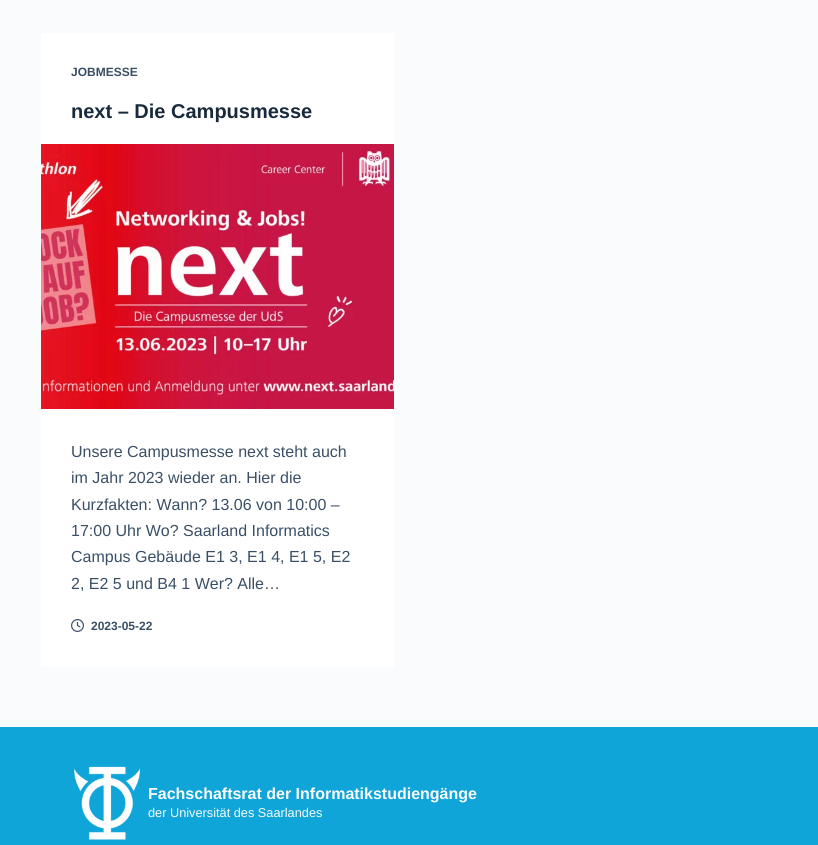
#include <cairo.h>
#include <math.h>
#include <stddef.h>

static cairo_t *c;
static void C(unsigned color){cairo_set_source_rgb(c, (color >> 16) / 255.0, (color >> 8 & 255) / 255.0, (color & 255) / 255.0);}
static void F(const char *family, double size, int italic, int bold){cairo_select_font_face(c, family, italic ? CAIRO_FONT_SLANT_ITALIC : CAIRO_FONT_SLANT_NORMAL,bold ? CAIRO_FONT_WEIGHT_BOLD : CAIRO_FONT_WEIGHT_NORMAL);cairo_set_font_size(c, size);}
static void T(double x, double y, const char *s){cairo_move_to(c, x, y);cairo_show_text(c, s);}
static void R(double x, double y, double w, double h){cairo_rectangle(c, x, y, w, h);cairo_fill(c);}
static void I(const char *path, double x, double y, double w, double h){cairo_surface_t *image = cairo_image_surface_create_from_png(path);cairo_save(c);cairo_set_source_surface(c, image, x, y);cairo_rectangle(c, x, y, w, h);cairo_fill(c);cairo_restore(c);cairo_surface_destroy(image);}
int main(void) {
cairo_surface_t *surface = cairo_image_surface_create(CAIRO_FORMAT_RGB24, 818, 845);
c = cairo_create(surface);
cairo_font_options_t *options = cairo_font_options_create();
cairo_font_options_set_hint_metrics(options, CAIRO_HINT_METRICS_OFF);
cairo_font_options_set_hint_style(options, CAIRO_HINT_STYLE_NONE);
cairo_set_font_options(c, options);
cairo_set_miter_limit(c, 4);
C(0xfafbfc);
cairo_paint(c);
C(0xffffff);
R(41,33,353,634);
F("Liberation Sans",12,0,1);
C(0x3a4f66);
T(71,76,"JOBMESSE");
F("Liberation Sans",20,0,1);
C(0x192a3d);
T(71,118,"next – Die Campusmesse");
I("1.png",41,144,353,265);
F("Liberation Sans",16,0,0);
C(0x3a4f66);
T(71,457,"Unsere Campusmesse next steht auch");
T(71,483,"im Jahr 2023 wieder an. Hier die");
T(71,510,"Kurzfakten: Wann? 13.06 von 10:00 –");
T(71,536,"17:00 Uhr Wo? Saarland Informatics");
T(71,562,"Campus Gebäude E1 3, E1 4, E1 5, E2");
T(71,589,"2, E2 5 und B4 1 Wer? Alle…");
I("2.png",71,619,13,13);
F("Liberation Sans",12,0,1);
T(91,630,"2023-05-22");
C(0x0fa5d9);
R(0,727,818,118);
I("3.png",73,766,68,74);
F("Liberation Sans",16,0,1);
C(0xfafbfc);
T(148,799,"Fachschaftsrat der Informatikstudiengänge");
F("Liberation Sans",12.75,0,0);
T(148,817,"der Universität des Saarlandes");
cairo_surface_write_to_png(surface, "o.png");
cairo_font_options_destroy(options);
cairo_destroy(c);
cairo_surface_destroy(surface);
return 0;
}
